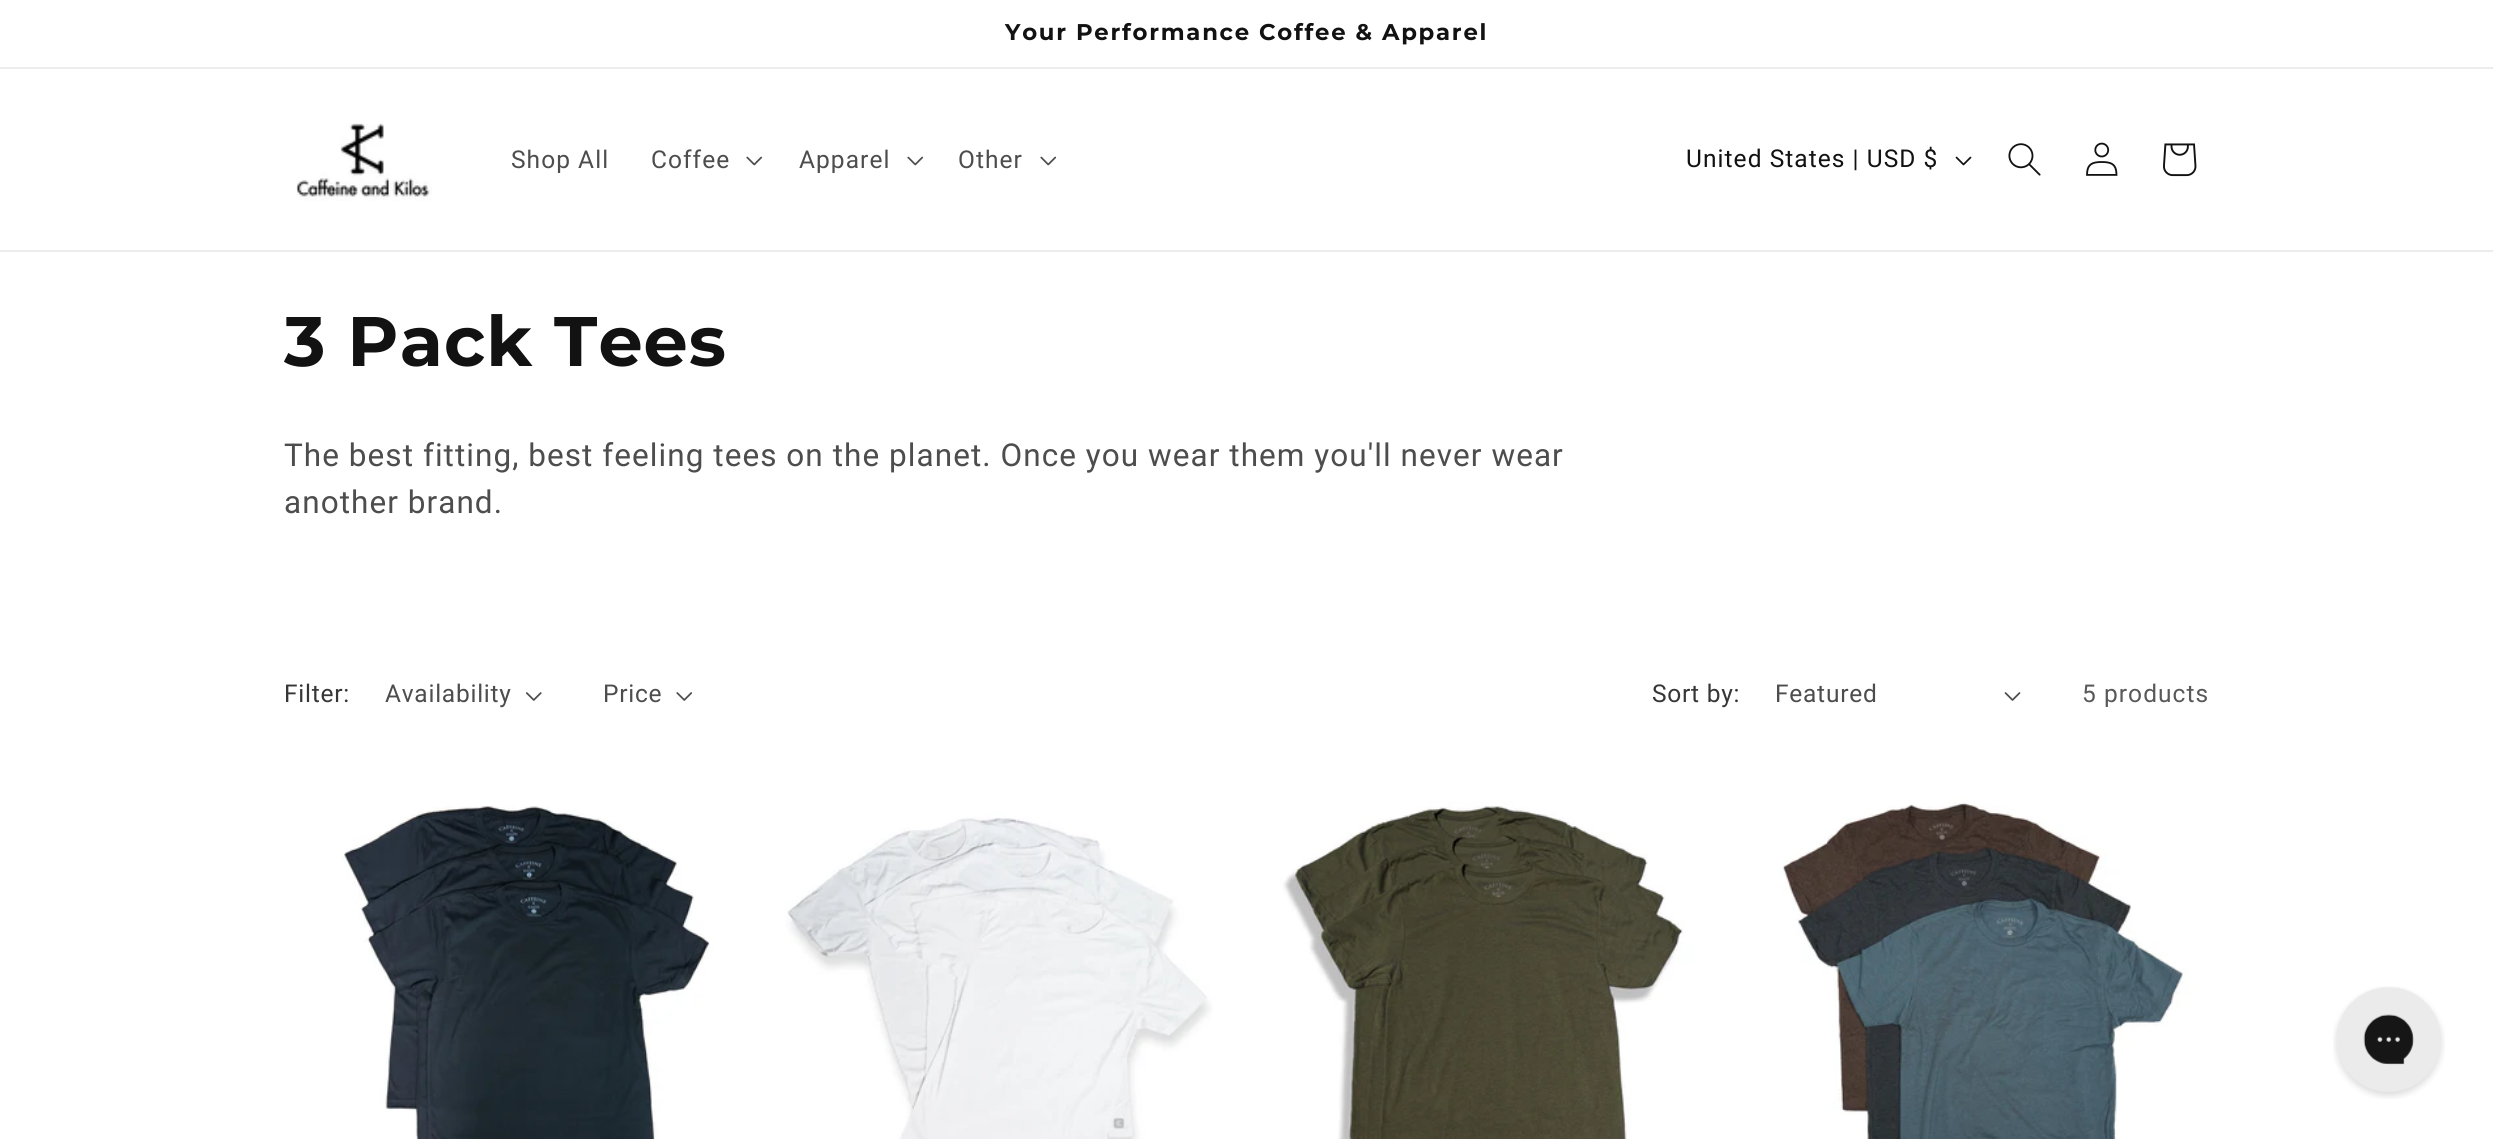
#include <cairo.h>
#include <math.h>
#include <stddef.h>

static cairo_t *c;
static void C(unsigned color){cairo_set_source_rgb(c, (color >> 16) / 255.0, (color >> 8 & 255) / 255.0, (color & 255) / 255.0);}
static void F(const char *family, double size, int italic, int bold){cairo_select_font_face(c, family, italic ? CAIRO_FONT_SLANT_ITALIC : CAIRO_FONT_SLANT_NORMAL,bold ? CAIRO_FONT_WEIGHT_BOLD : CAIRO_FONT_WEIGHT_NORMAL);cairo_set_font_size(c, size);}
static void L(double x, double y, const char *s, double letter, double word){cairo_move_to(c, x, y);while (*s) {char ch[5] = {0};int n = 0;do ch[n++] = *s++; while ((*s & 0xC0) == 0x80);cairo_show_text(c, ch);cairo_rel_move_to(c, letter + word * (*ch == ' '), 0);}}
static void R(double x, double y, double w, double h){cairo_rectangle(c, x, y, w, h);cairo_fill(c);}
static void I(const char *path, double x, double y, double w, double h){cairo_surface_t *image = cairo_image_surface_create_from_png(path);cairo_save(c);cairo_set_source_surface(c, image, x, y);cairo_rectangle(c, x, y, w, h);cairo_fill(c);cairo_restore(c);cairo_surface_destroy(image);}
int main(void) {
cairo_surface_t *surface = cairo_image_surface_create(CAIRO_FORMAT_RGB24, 2493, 1139);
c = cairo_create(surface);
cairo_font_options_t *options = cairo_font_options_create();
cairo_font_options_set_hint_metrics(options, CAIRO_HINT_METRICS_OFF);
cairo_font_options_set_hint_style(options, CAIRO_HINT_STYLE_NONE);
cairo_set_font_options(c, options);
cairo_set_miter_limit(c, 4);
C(0xffffff);
cairo_paint(c);
C(0xececec);
R(0,67,2493,2);
F("Montserrat",22.75,0,1);
C(0x121212);
L(1005,40,"Your Performance Coffee & Apparel",1.75,0);
C(0xececec);
R(0,250,2493,2);
I("1.png",296,123,136,78);
F("Roboto",24.5,0,0);
C(0x4d4d4d);
L(511,168,"Shop All",1.05,0);
L(651,168,"Coffee",1.05,0);
I("2.png",746,156,17,10);
L(799,168,"Apparel",1.05,0);
I("2.png",907,156,17,10);
L(958,168,"Other",1.05,0);
I("2.png",1040,156,17,10);
C(0x121212);
L(1686,167,"United States | USD $",1.05,0);
I("3.png",1955,156,17,10);
I("4.png",2008,143,33,33);
I("5.png",2086,142,32,34);
I("6.png",2163,143,34,34);
F("Montserrat",70,0,1);
L(284,366,"3 Pack Tees",1.05,0);
F("Roboto",31.5,0,0);
C(0x4d4d4d);
L(284,466,"The best fitting, best feeling tees on the planet. Once you wear them you'll never wear",1.05,0);
L(284,513,"another brand.",1.05,0);
F("Roboto",24.5,0,0);
C(0x363636);
L(284,702,"Filter:",.75,0);
C(0x4d4d4d);
L(385,702,"Availability",.75,0);
I("7.png",526,692,16,9);
L(603,702,"Price",.75,0);
I("8.png",676,692,16,9);
C(0x363636);
L(1652,702,"Sort by:",.75,0);
C(0x4d4d4d);
L(1775,702,"Featured",.75,0);
I("9.png",2004,692,17,9);
C(0x595959);
L(2082,702,"5 products",1.05,0);
I("10.png",285,775,471,364);
I("11.png",770,775,471,364);
I("12.png",1255,775,471,364);
I("13.png",1740,775,470,364);
I("14.png",2333,986,112,113);
cairo_surface_write_to_png(surface, "o.png");
cairo_font_options_destroy(options);
cairo_destroy(c);
cairo_surface_destroy(surface);
return 0;
}
